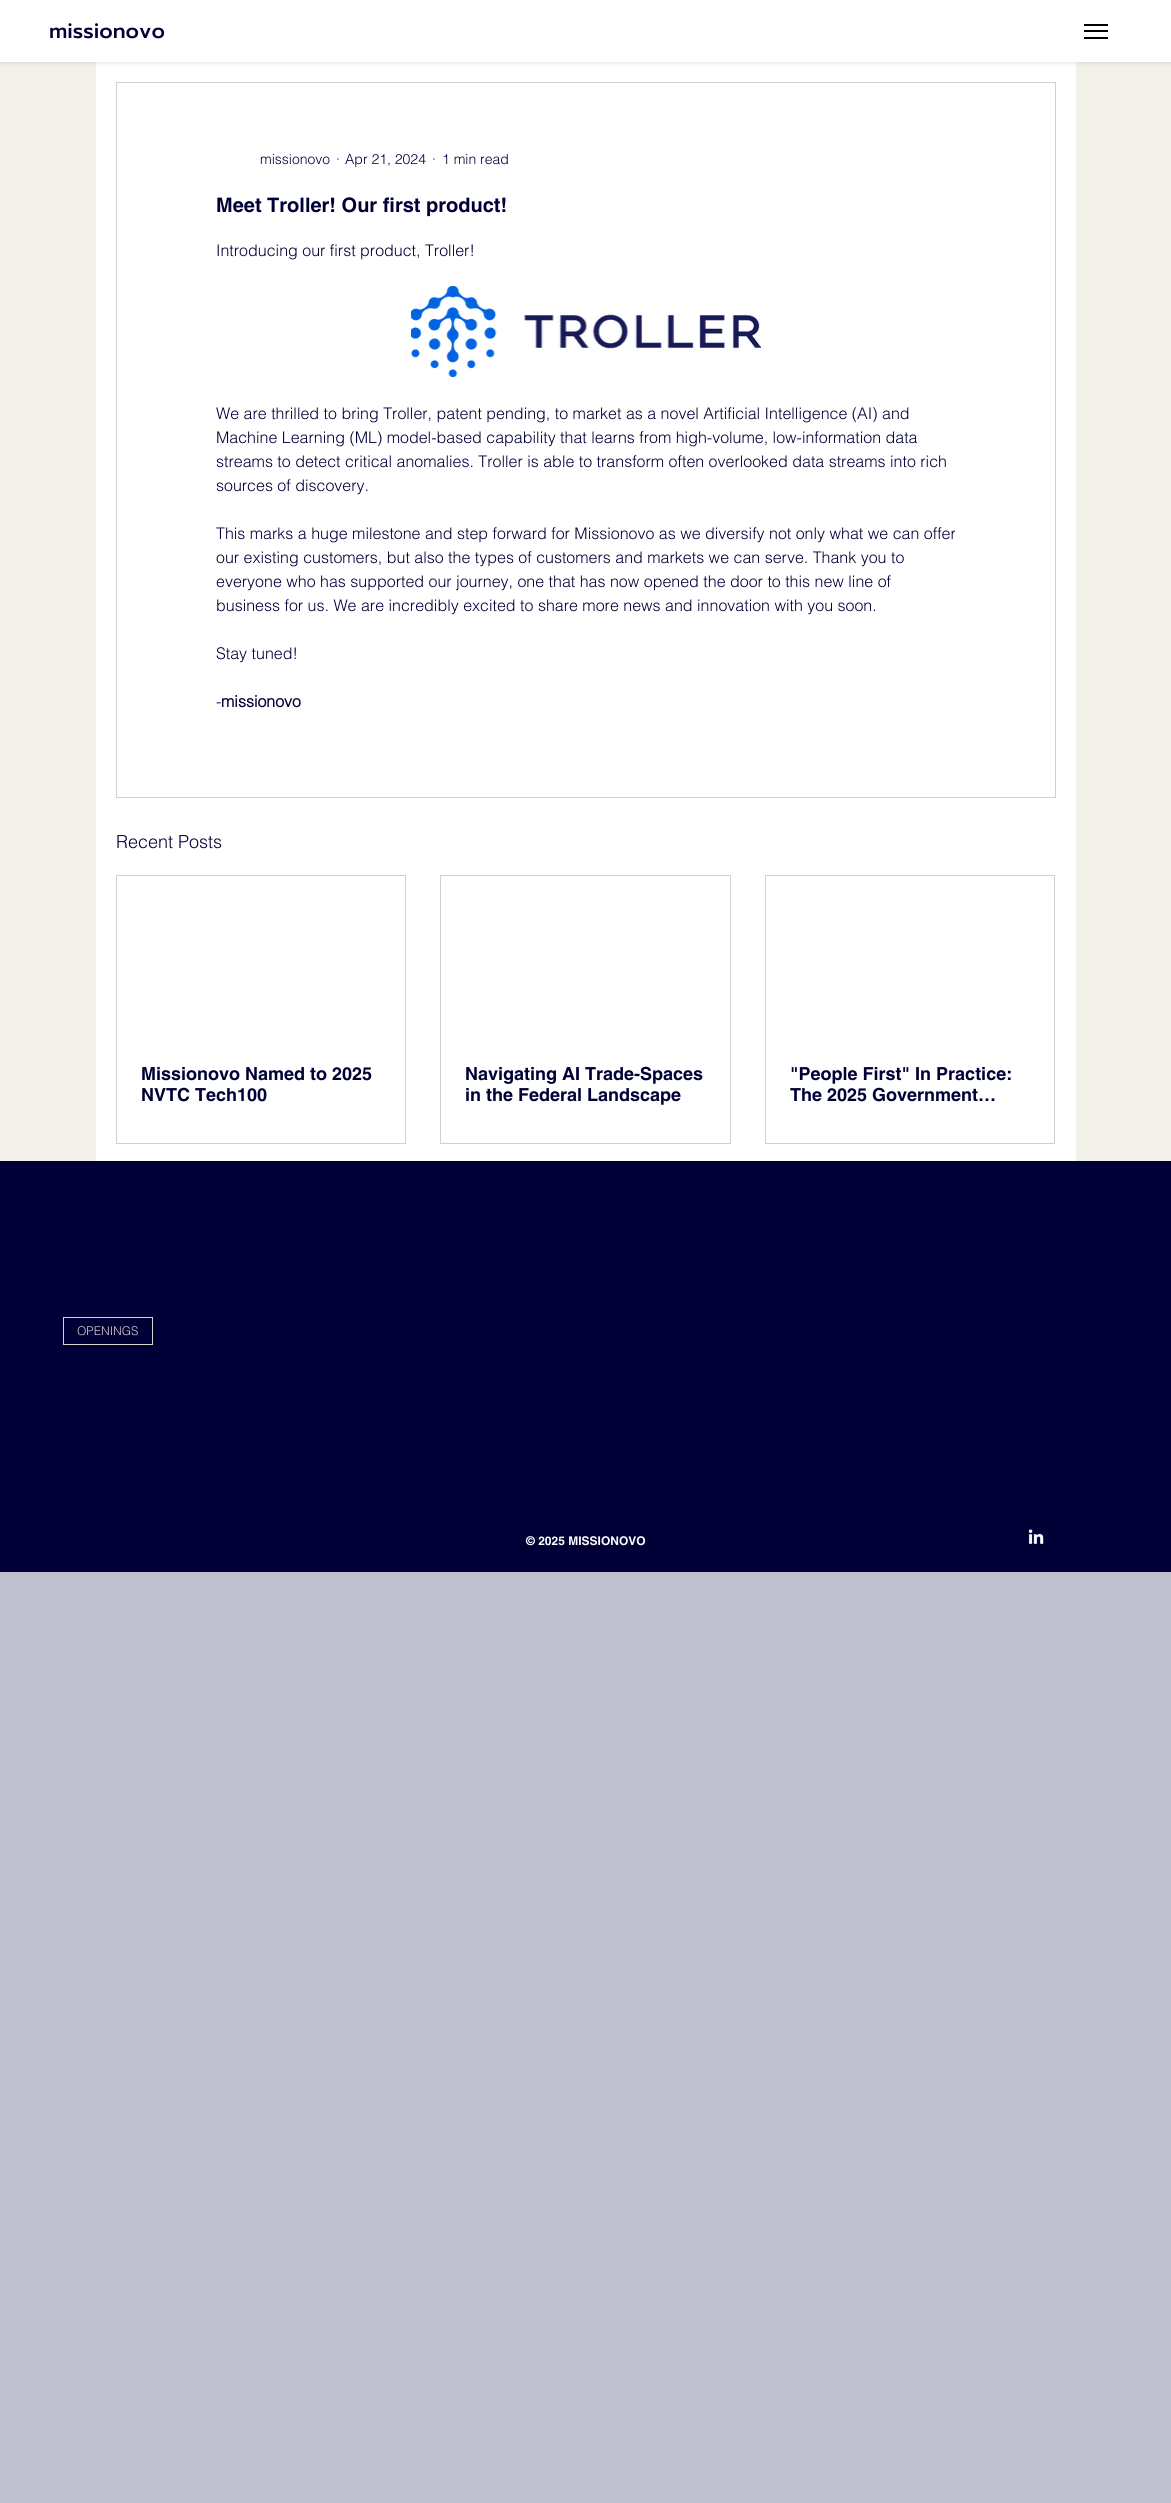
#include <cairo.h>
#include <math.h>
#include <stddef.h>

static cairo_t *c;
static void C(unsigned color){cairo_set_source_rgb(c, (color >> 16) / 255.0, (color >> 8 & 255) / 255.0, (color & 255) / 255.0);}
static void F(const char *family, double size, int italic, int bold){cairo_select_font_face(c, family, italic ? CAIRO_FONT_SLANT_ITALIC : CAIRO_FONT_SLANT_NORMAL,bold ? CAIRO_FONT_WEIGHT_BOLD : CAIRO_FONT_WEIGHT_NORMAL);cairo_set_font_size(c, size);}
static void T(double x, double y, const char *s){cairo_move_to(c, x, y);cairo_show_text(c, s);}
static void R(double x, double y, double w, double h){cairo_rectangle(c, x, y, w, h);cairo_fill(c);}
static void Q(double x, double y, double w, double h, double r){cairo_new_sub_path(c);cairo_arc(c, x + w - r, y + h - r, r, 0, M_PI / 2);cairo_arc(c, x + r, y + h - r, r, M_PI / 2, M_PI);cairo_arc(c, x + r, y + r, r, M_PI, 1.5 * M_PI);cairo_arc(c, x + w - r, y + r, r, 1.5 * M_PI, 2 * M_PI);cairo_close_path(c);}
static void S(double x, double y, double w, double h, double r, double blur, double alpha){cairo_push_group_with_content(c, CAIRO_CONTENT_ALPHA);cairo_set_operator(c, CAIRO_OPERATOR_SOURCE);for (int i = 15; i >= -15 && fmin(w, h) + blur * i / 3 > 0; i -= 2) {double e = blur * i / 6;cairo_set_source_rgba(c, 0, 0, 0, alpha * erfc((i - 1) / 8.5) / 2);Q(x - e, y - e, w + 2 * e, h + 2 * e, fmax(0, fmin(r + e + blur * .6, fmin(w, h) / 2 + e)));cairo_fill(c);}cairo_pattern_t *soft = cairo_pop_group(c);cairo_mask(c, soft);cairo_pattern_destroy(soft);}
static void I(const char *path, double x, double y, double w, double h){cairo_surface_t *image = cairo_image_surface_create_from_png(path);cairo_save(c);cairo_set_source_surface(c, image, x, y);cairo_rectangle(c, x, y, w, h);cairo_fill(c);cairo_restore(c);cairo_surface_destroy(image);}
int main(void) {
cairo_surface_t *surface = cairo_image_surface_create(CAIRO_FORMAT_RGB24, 1171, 2503);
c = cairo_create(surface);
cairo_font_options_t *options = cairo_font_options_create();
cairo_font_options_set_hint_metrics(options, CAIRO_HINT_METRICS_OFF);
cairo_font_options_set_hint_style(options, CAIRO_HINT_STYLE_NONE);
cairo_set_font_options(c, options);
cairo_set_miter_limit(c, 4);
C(0xbfbfcd);
cairo_paint(c);
C(0xf1f1e9);
R(0,62,1171,1099);
C(0xffffff);
R(96,62,980,1099);
C(0x000000);
S(0,1,1171,62,0,2,.11);
C(0xffffff);
R(0,0,1171,62);
F("Prompt Medium",21,0,0);
C(0x000037);
T(49,38,"missionovo");
C(0x000000);
R(1084,37,24,2);
R(1084,24,24,2);
R(1084,30,24,2);
cairo_rectangle(c,116.5,82.5,939,715);
C(0xcfcfda);
cairo_set_line_width(c,1);
cairo_stroke(c);
F("helvetica Light",14,0,0);
C(0x000037);
T(260,164,"missionovo");
T(336,164,"·");
T(345,164,"Apr 21, 2024");
T(432,164,"·");
T(442,164,"1 min read");
F("helvetica",20,0,1);
T(216,212,"Meet Troller! Our first product!");
F("helvetica Light",16,0,0);
T(216,256,"Introducing our first product, Troller!");
I("1.png",411,286,350,91);
T(216,419,"We are thrilled to bring Troller, patent pending, to market as a novel Artificial Intelligence (AI) and");
T(216,443,"Machine Learning (ML) model-based capability that learns from high-volume, low-information data");
T(216,467,"streams to detect critical anomalies. Troller is able to transform often overlooked data streams into rich");
T(216,491,"sources of discovery.");
T(216,539,"This marks a huge milestone and step forward for Missionovo as we diversify not only what we can offer");
T(216,563,"our existing customers, but also the types of customers and markets we can serve. Thank you to");
T(216,587,"everyone who has supported our journey, one that has now opened the door to this new line of");
T(216,611,"business for us. We are incredibly excited to share more news and innovation with you soon.");
T(216,659,"Stay tuned!");
T(216,707,"-");
F("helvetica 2",16,0,1);
T(221,707,"missionovo");
F("helvetica Light",18,0,0);
T(116,848,"Recent Posts");
cairo_rectangle(c,116.5,875.5,289,268);
C(0xcfcfda);
cairo_stroke(c);
F("helvetica",18,0,1);
C(0x000037);
T(141,1080,"Missionovo Named to 2025");
T(141,1101,"NVTC Tech100");
cairo_rectangle(c,440.5,875.5,290,268);
C(0xcfcfda);
cairo_stroke(c);
C(0x000037);
T(465,1080,"Navigating AI Trade-Spaces");
T(465,1101,"in the Federal Landscape");
cairo_rectangle(c,765.5,875.5,289,268);
C(0xcfcfda);
cairo_stroke(c);
C(0x000037);
T(790,1080,"\"People First\" In Practice:");
T(790,1101,"The 2025 Government…");
R(0,1161,1171,369);
cairo_rectangle(c,63.5,1317.5,89,27);
C(0xd9d1cc);
cairo_stroke(c);
F("helvetica Light",12,0,0);
T(77,1335,"OPENINGS");
C(0x000037);
R(0,1530,1171,42);
F("helvetica",12,0,1);
C(0xffffff);
T(526,1545,"© 2025 MISSIONOVO");
I("2.png",1028,1529,16,15);
cairo_surface_write_to_png(surface, "o.png");
cairo_font_options_destroy(options);
cairo_destroy(c);
cairo_surface_destroy(surface);
return 0;
}
